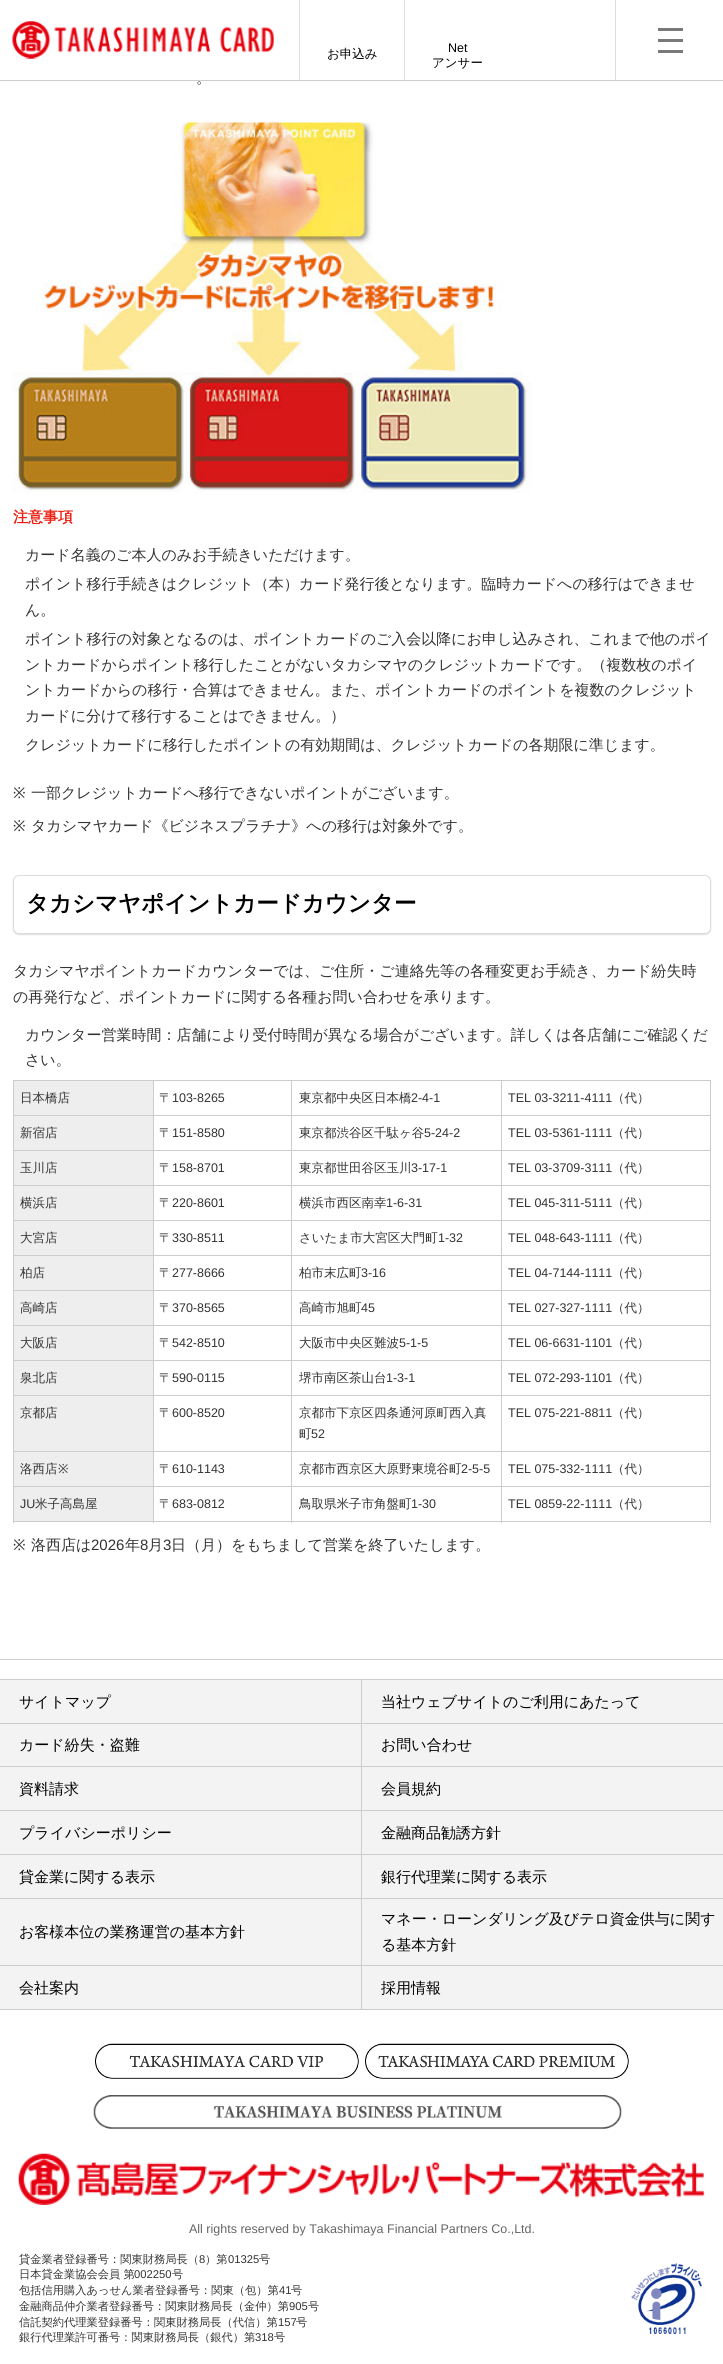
#include <cairo.h>
#include <math.h>
#include <stddef.h>

static cairo_t *c;
static void C(unsigned color){cairo_set_source_rgb(c, (color >> 16) / 255.0, (color >> 8 & 255) / 255.0, (color & 255) / 255.0);}
static void F(const char *family, double size, int italic, int bold){cairo_select_font_face(c, family, italic ? CAIRO_FONT_SLANT_ITALIC : CAIRO_FONT_SLANT_NORMAL,bold ? CAIRO_FONT_WEIGHT_BOLD : CAIRO_FONT_WEIGHT_NORMAL);cairo_set_font_size(c, size);}
static void T(double x, double y, const char *s){cairo_move_to(c, x, y);cairo_show_text(c, s);}
static void R(double x, double y, double w, double h){cairo_rectangle(c, x, y, w, h);cairo_fill(c);}
static void Q(double x, double y, double w, double h, double r){cairo_new_sub_path(c);cairo_arc(c, x + w - r, y + h - r, r, 0, M_PI / 2);cairo_arc(c, x + r, y + h - r, r, M_PI / 2, M_PI);cairo_arc(c, x + r, y + r, r, M_PI, 1.5 * M_PI);cairo_arc(c, x + w - r, y + r, r, 1.5 * M_PI, 2 * M_PI);cairo_close_path(c);}
static void S(double x, double y, double w, double h, double r, double blur, double alpha){cairo_push_group_with_content(c, CAIRO_CONTENT_ALPHA);cairo_set_operator(c, CAIRO_OPERATOR_SOURCE);for (int i = 15; i >= -15 && fmin(w, h) + blur * i / 3 > 0; i -= 2) {double e = blur * i / 6;cairo_set_source_rgba(c, 0, 0, 0, alpha * erfc((i - 1) / 8.5) / 2);Q(x - e, y - e, w + 2 * e, h + 2 * e, fmax(0, fmin(r + e + blur * .6, fmin(w, h) / 2 + e)));cairo_fill(c);}cairo_pattern_t *soft = cairo_pop_group(c);cairo_mask(c, soft);cairo_pattern_destroy(soft);}
static void I(const char *path, double x, double y, double w, double h){cairo_surface_t *image = cairo_image_surface_create_from_png(path);cairo_save(c);cairo_set_source_surface(c, image, x, y);cairo_rectangle(c, x, y, w, h);cairo_fill(c);cairo_restore(c);cairo_surface_destroy(image);}
int main(void) {
cairo_surface_t *surface = cairo_image_surface_create(CAIRO_FORMAT_RGB24, 723, 2364);
c = cairo_create(surface);
cairo_font_options_t *options = cairo_font_options_create();
cairo_font_options_set_hint_metrics(options, CAIRO_HINT_METRICS_OFF);
cairo_font_options_set_hint_style(options, CAIRO_HINT_STYLE_NONE);
cairo_set_font_options(c, options);
cairo_set_miter_limit(c, 4);
C(0xffffff);
cairo_paint(c);
C(0xcccccc);
R(0,80,723,1);
I("1.png",12,21,262,38);
C(0xdddddd);
R(299,0,1,80);
F("WenQuanYi Zen Hei Medium",12.5,0,0);
C(0x000000);
T(327,58,"お申込み");
C(0xdddddd);
R(404,0,1,80);
F("Liberation Sans",12.5,0,0);
C(0x000000);
T(448,52,"Net");
F("WenQuanYi Zen Hei Medium",12.5,0,0);
T(432,67,"アンサー");
C(0xdddddd);
R(615,0,1,80);
C(0x7a7979);
R(658,28,25,3);
R(658,39,25,3);
R(658,50,25,3);
F("WenQuanYi Zen Hei Medium",15,0,0);
C(0x333333);
T(196,83,"。");
I("2.png",12,122,520,371);
F("WenQuanYi Zen Hei",15,0,1);
C(0xec2113);
T(13,522,"注意事項");
F("WenQuanYi Zen Hei Medium",15,0,0);
C(0x333333);
T(25,560,"カード名義のご本人のみお手続きいただけます。");
T(25,589,"ポイント移行手続きはクレジット（本）カード発行後となります。臨時カードへの移行はできませ");
T(25,615,"ん。");
T(25,644,"ポイント移行の対象となるのは、ポイントカードのご入会以降にお申し込みされ、これまで他のポイ");
T(25,670,"ントカードからポイント移行したことがないタカシマヤのクレジットカードです。（複数枚のポイ");
T(25,695,"ントカードからの移行・合算はできません。また、ポイントカードのポイントを複数のクレジット");
T(25,721,"カードに分けて移行することはできません。）");
T(25,750,"クレジットカードに移行したポイントの有効期間は、クレジットカードの各期限に準じます。");
F("Noto Sans",15,0,0);
T(13,798,"※");
F("WenQuanYi Zen Hei Medium",15,0,0);
T(31,798,"一部クレジットカードへ移行できないポイントがございます。");
F("Noto Sans",15,0,0);
T(13,831,"※");
F("WenQuanYi Zen Hei Medium",15,0,0);
T(31,831,"タカシマヤカード《ビジネスプラチナ》への移行は対象外です。");
C(0x969696);
S(13,876,698,59,6,.5,.3);
C(0xffffff);
Q(13.5,875.5,697,58,5.5);
cairo_fill_preserve(c);
C(0xdddddd);
cairo_set_line_width(c,1);
cairo_stroke(c);
F("WenQuanYi Zen Hei",22.5,0,1);
C(0x000000);
T(26,911,"タカシマヤポイントカードカウンター");
F("WenQuanYi Zen Hei Medium",15,0,0);
C(0x333333);
T(13,976,"タカシマヤポイントカードカウンターでは、ご住所・ご連絡先等の各種変更お手続き、カード紛失時");
T(13,1002,"の再発行など、ポイントカードに関する各種お問い合わせを承ります。");
T(25,1040,"カウンター営業時間：店舗により受付時間が異なる場合がございます。詳しくは各店舗にご確認くだ");
T(25,1065,"さい。");
C(0xcccccc);
R(13,1080,698,1);
R(710,1080,1,443);
R(13,1521,698,1);
R(13,1080,1,443);
C(0xeeeeee);
R(14,1081,139,34);
C(0xcccccc);
R(501,1486,1,37);
R(501,1486,210,1);
R(501,1451,1,37);
R(501,1451,210,1);
R(501,1395,1,58);
R(501,1395,210,1);
R(501,1360,1,36);
R(501,1360,210,1);
R(501,1325,1,36);
R(501,1325,210,1);
R(501,1290,1,36);
R(501,1290,210,1);
R(501,1255,1,36);
R(501,1255,210,1);
R(501,1220,1,36);
R(501,1220,210,1);
R(501,1185,1,36);
R(501,1185,210,1);
R(501,1150,1,36);
R(501,1150,210,1);
R(501,1115,1,36);
R(501,1115,210,1);
R(501,1080,1,36);
R(291,1486,1,37);
R(291,1486,212,1);
R(291,1451,1,37);
R(291,1451,212,1);
R(291,1395,1,58);
R(291,1395,212,1);
R(291,1360,1,36);
R(291,1360,212,1);
R(291,1325,1,36);
R(291,1325,212,1);
R(291,1290,1,36);
R(291,1290,212,1);
R(291,1255,1,36);
R(291,1255,212,1);
R(291,1220,1,36);
R(291,1220,212,1);
R(291,1185,1,36);
R(291,1185,212,1);
R(291,1150,1,36);
R(291,1150,212,1);
R(291,1115,1,36);
R(291,1115,212,1);
R(291,1080,1,36);
R(153,1486,1,37);
R(153,1486,140,1);
R(153,1451,1,37);
R(153,1451,140,1);
R(153,1395,1,58);
R(153,1395,140,1);
R(153,1360,1,36);
R(153,1360,140,1);
R(153,1325,1,36);
R(153,1325,140,1);
R(153,1290,1,36);
R(153,1290,140,1);
R(153,1255,1,36);
R(153,1255,140,1);
R(153,1220,1,36);
R(153,1220,140,1);
R(153,1185,1,36);
R(153,1185,140,1);
R(153,1150,1,36);
R(153,1150,140,1);
R(153,1115,1,36);
R(153,1115,140,1);
R(153,1080,1,36);
R(13,1115,141,1);
F("WenQuanYi Zen Hei Medium",12.5,0,0);
C(0x333333);
T(20,1102,"日本橋店");
T(159,1102,"〒");
F("Liberation Sans",12.5,0,0);
T(172,1102,"103-8265");
F("WenQuanYi Zen Hei Medium",12.5,0,0);
T(299,1102,"東京都中央区日本橋");
F("Liberation Sans",12.5,0,0);
T(411,1102,"2-4-1");
T(508,1102,"TEL 03-3211-4111");
F("WenQuanYi Zen Hei Medium",12.5,0,0);
T(612,1102,"（代）");
C(0xeeeeee);
R(14,1116,139,34);
C(0xcccccc);
R(13,1150,141,1);
C(0x333333);
T(20,1137,"新宿店");
T(159,1137,"〒");
F("Liberation Sans",12.5,0,0);
T(172,1137,"151-8580");
F("WenQuanYi Zen Hei Medium",12.5,0,0);
T(299,1137,"東京都渋谷区千駄ヶ谷");
F("Liberation Sans",12.5,0,0);
T(424,1137,"5-24-2");
T(508,1137,"TEL 03-5361-1111");
F("WenQuanYi Zen Hei Medium",12.5,0,0);
T(612,1137,"（代）");
C(0xeeeeee);
R(14,1151,139,34);
C(0xcccccc);
R(13,1185,141,1);
C(0x333333);
T(20,1172,"玉川店");
T(159,1172,"〒");
F("Liberation Sans",12.5,0,0);
T(172,1172,"158-8701");
F("WenQuanYi Zen Hei Medium",12.5,0,0);
T(299,1172,"東京都世田谷区玉川");
F("Liberation Sans",12.5,0,0);
T(411,1172,"3-17-1");
T(508,1172,"TEL 03-3709-3111");
F("WenQuanYi Zen Hei Medium",12.5,0,0);
T(612,1172,"（代）");
C(0xeeeeee);
R(14,1186,139,34);
C(0xcccccc);
R(13,1220,141,1);
C(0x333333);
T(20,1207,"横浜店");
T(159,1207,"〒");
F("Liberation Sans",12.5,0,0);
T(172,1207,"220-8601");
F("WenQuanYi Zen Hei Medium",12.5,0,0);
T(299,1207,"横浜市西区南幸");
F("Liberation Sans",12.5,0,0);
T(386,1207,"1-6-31");
T(508,1207,"TEL 045-311-5111");
F("WenQuanYi Zen Hei Medium",12.5,0,0);
T(612,1207,"（代）");
C(0xeeeeee);
R(14,1221,139,34);
C(0xcccccc);
R(13,1255,141,1);
C(0x333333);
T(20,1242,"大宮店");
T(159,1242,"〒");
F("Liberation Sans",12.5,0,0);
T(172,1242,"330-8511");
F("WenQuanYi Zen Hei Medium",12.5,0,0);
T(299,1242,"さいたま市大宮区大門町");
F("Liberation Sans",12.5,0,0);
T(438,1242,"1-32");
T(508,1242,"TEL 048-643-1111");
F("WenQuanYi Zen Hei Medium",12.5,0,0);
T(612,1242,"（代）");
C(0xeeeeee);
R(14,1256,139,34);
C(0xcccccc);
R(13,1290,141,1);
C(0x333333);
T(20,1277,"柏店");
T(159,1277,"〒");
F("Liberation Sans",12.5,0,0);
T(172,1277,"277-8666");
F("WenQuanYi Zen Hei Medium",12.5,0,0);
T(299,1277,"柏市末広町");
F("Liberation Sans",12.5,0,0);
T(361,1277,"3-16");
T(508,1277,"TEL 04-7144-1111");
F("WenQuanYi Zen Hei Medium",12.5,0,0);
T(612,1277,"（代）");
C(0xeeeeee);
R(14,1291,139,34);
C(0xcccccc);
R(13,1325,141,1);
C(0x333333);
T(20,1312,"高崎店");
T(159,1312,"〒");
F("Liberation Sans",12.5,0,0);
T(172,1312,"370-8565");
F("WenQuanYi Zen Hei Medium",12.5,0,0);
T(299,1312,"高崎市旭町");
F("Liberation Sans",12.5,0,0);
T(361,1312,"45");
T(508,1312,"TEL 027-327-1111");
F("WenQuanYi Zen Hei Medium",12.5,0,0);
T(612,1312,"（代）");
C(0xeeeeee);
R(14,1326,139,34);
C(0xcccccc);
R(13,1360,141,1);
C(0x333333);
T(20,1347,"大阪店");
T(159,1347,"〒");
F("Liberation Sans",12.5,0,0);
T(172,1347,"542-8510");
F("WenQuanYi Zen Hei Medium",12.5,0,0);
T(299,1347,"大阪市中央区難波");
F("Liberation Sans",12.5,0,0);
T(399,1347,"5-1-5");
T(508,1347,"TEL 06-6631-1101");
F("WenQuanYi Zen Hei Medium",12.5,0,0);
T(612,1347,"（代）");
C(0xeeeeee);
R(14,1361,139,34);
C(0xcccccc);
R(13,1395,141,1);
C(0x333333);
T(20,1382,"泉北店");
T(159,1382,"〒");
F("Liberation Sans",12.5,0,0);
T(172,1382,"590-0115");
F("WenQuanYi Zen Hei Medium",12.5,0,0);
T(299,1382,"堺市南区茶山台");
F("Liberation Sans",12.5,0,0);
T(386,1382,"1-3-1");
T(508,1382,"TEL 072-293-1101");
F("WenQuanYi Zen Hei Medium",12.5,0,0);
T(612,1382,"（代）");
C(0xeeeeee);
R(14,1396,139,55);
C(0xcccccc);
R(13,1451,141,1);
C(0x333333);
T(20,1417,"京都店");
T(159,1417,"〒");
F("Liberation Sans",12.5,0,0);
T(172,1417,"600-8520");
F("WenQuanYi Zen Hei Medium",12.5,0,0);
T(299,1417,"京都市下京区四条通河原町西入真");
T(299,1438,"町");
F("Liberation Sans",12.5,0,0);
T(311,1438,"52");
T(508,1417,"TEL 075-221-8811");
F("WenQuanYi Zen Hei Medium",12.5,0,0);
T(612,1417,"（代）");
C(0xeeeeee);
R(14,1452,139,34);
C(0xcccccc);
R(13,1486,141,1);
C(0x333333);
T(20,1473,"洛西店");
F("Noto Sans",12.5,0,0);
T(58,1473,"※");
F("WenQuanYi Zen Hei Medium",12.5,0,0);
T(159,1473,"〒");
F("Liberation Sans",12.5,0,0);
T(172,1473,"610-1143");
F("WenQuanYi Zen Hei Medium",12.5,0,0);
T(299,1473,"京都市西京区大原野東境谷町");
F("Liberation Sans",12.5,0,0);
T(461,1473,"2-5-5");
T(508,1473,"TEL 075-332-1111");
F("WenQuanYi Zen Hei Medium",12.5,0,0);
T(612,1473,"（代）");
C(0xeeeeee);
R(14,1487,139,34);
F("Liberation Sans",12.5,0,0);
C(0x333333);
T(20,1508,"JU");
F("WenQuanYi Zen Hei Medium",12.5,0,0);
T(35,1508,"米子高島屋");
T(159,1508,"〒");
F("Liberation Sans",12.5,0,0);
T(172,1508,"683-0812");
F("WenQuanYi Zen Hei Medium",12.5,0,0);
T(299,1508,"鳥取県米子市角盤町");
F("Liberation Sans",12.5,0,0);
T(411,1508,"1-30");
T(508,1508,"TEL 0859-22-1111");
F("WenQuanYi Zen Hei Medium",12.5,0,0);
T(612,1508,"（代）");
F("Noto Sans",15,0,0);
T(13,1550,"※");
F("WenQuanYi Zen Hei Medium",15,0,0);
T(31,1550,"洛西店は");
F("Liberation Sans",15,0,0);
T(91,1550,"2026");
F("WenQuanYi Zen Hei Medium",15,0,0);
T(125,1550,"年");
F("Liberation Sans",15,0,0);
T(140,1550,"8");
F("WenQuanYi Zen Hei Medium",15,0,0);
T(148,1550,"月");
F("Liberation Sans",15,0,0);
T(163,1550,"3");
F("WenQuanYi Zen Hei Medium",15,0,0);
T(171,1550,"日（月）をもちまして営業を終了いたします。");
C(0xcccccc);
R(0,1659,723,1);
R(0,1679,723,1);
C(0xf3f3f3);
R(0,1680,723,43);
C(0xcccccc);
R(361,1680,1,44);
R(0,1723,723,1);
C(0x000000);
T(19,1707,"サイトマップ");
T(381,1707,"当社ウェブサイトのご利用にあたって");
C(0xf3f3f3);
R(0,1724,723,44);
C(0xcccccc);
R(361,1724,1,44);
R(0,1766,723,1);
C(0x000000);
T(19,1750,"カード紛失・盗難");
T(381,1750,"お問い合わせ");
C(0xf3f3f3);
R(0,1768,723,42);
C(0xcccccc);
R(361,1768,1,43);
R(0,1810,723,1);
C(0x000000);
T(19,1794,"資料請求");
T(381,1794,"会員規約");
C(0xf3f3f3);
R(0,1811,723,43);
C(0xcccccc);
R(361,1811,1,44);
R(0,1854,723,1);
C(0x000000);
T(19,1838,"プライバシーポリシー");
T(381,1838,"金融商品勧誘方針");
C(0xf3f3f3);
R(0,1855,723,43);
C(0xcccccc);
R(361,1855,1,44);
R(0,1898,723,1);
C(0x000000);
T(19,1882,"貸金業に関する表示");
T(381,1882,"銀行代理業に関する表示");
C(0xf3f3f3);
R(0,1899,723,66);
C(0xcccccc);
R(361,1899,1,67);
R(0,1965,723,1);
C(0x000000);
T(19,1937,"お客様本位の業務運営の基本方針");
T(381,1924,"マネー・ローンダリング及びテロ資金供与に関す");
T(381,1950,"る基本方針");
C(0xf3f3f3);
R(0,1966,723,43);
C(0xcccccc);
R(361,1966,1,44);
R(0,2009,723,1);
C(0x000000);
T(19,1993,"会社案内");
T(381,1993,"採用情報");
I("3.png",95,2043,264,36);
I("4.png",365,2043,264,36);
I("5.png",93,2095,529,34);
I("6.png",18,2153,687,52);
F("Liberation Sans",12.5,0,0);
C(0x666666);
T(189,2233,"All rights reserved by Takashimaya Financial Partners Co.,Ltd.");
F("WenQuanYi Zen Hei Medium",11.25,0,0);
C(0x333333);
T(19,2263,"貸金業者登録番号：関東財務局長（");
F("Liberation Sans",11.25,0,0);
T(199,2263,"8");
F("WenQuanYi Zen Hei Medium",11.25,0,0);
T(205,2263,"）第");
F("Liberation Sans",11.25,0,0);
T(228,2263,"01325");
F("WenQuanYi Zen Hei Medium",11.25,0,0);
T(259,2263,"号");
T(19,2278,"日本貸金業協会会員 第");
F("Liberation Sans",11.25,0,0);
T(134,2278,"002250");
F("WenQuanYi Zen Hei Medium",11.25,0,0);
T(172,2278,"号");
T(19,2294,"包括信用購入あっせん業者登録番号：関東（包）第");
F("Liberation Sans",11.25,0,0);
T(279,2294,"41");
F("WenQuanYi Zen Hei Medium",11.25,0,0);
T(291,2294,"号");
T(19,2310,"金融商品仲介業者登録番号：関東財務局長（金仲）第");
F("Liberation Sans",11.25,0,0);
T(289,2310,"905");
F("WenQuanYi Zen Hei Medium",11.25,0,0);
T(308,2310,"号");
T(19,2326,"信託契約代理業登録番号：関東財務局長（代信）第");
F("Liberation Sans",11.25,0,0);
T(278,2326,"157");
F("WenQuanYi Zen Hei Medium",11.25,0,0);
T(296,2326,"号");
T(19,2341,"銀行代理業許可番号：関東財務局長（銀代）第");
F("Liberation Sans",11.25,0,0);
T(255,2341,"318");
F("WenQuanYi Zen Hei Medium",11.25,0,0);
T(274,2341,"号");
I("7.png",631,2263,71,71);
cairo_surface_write_to_png(surface, "o.png");
cairo_font_options_destroy(options);
cairo_destroy(c);
cairo_surface_destroy(surface);
return 0;
}
